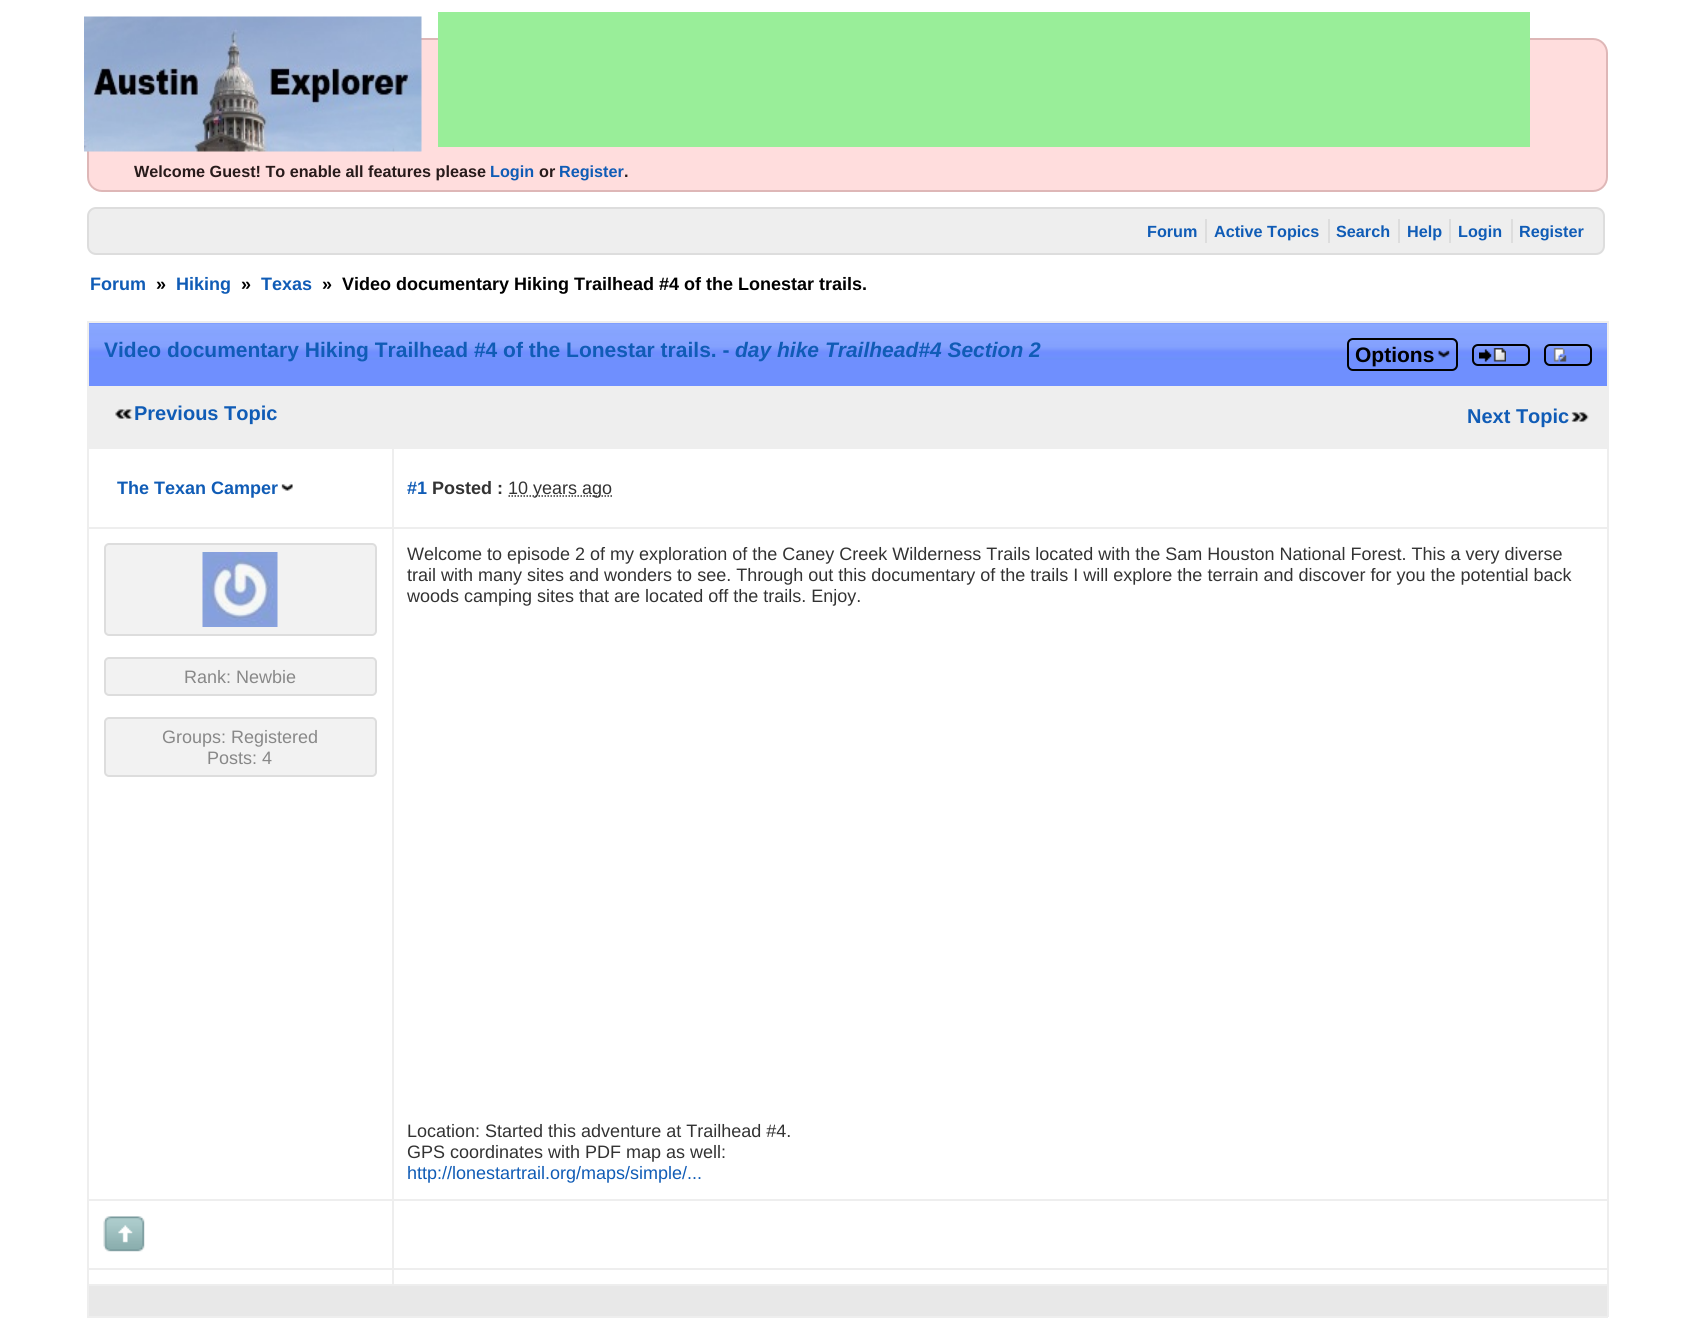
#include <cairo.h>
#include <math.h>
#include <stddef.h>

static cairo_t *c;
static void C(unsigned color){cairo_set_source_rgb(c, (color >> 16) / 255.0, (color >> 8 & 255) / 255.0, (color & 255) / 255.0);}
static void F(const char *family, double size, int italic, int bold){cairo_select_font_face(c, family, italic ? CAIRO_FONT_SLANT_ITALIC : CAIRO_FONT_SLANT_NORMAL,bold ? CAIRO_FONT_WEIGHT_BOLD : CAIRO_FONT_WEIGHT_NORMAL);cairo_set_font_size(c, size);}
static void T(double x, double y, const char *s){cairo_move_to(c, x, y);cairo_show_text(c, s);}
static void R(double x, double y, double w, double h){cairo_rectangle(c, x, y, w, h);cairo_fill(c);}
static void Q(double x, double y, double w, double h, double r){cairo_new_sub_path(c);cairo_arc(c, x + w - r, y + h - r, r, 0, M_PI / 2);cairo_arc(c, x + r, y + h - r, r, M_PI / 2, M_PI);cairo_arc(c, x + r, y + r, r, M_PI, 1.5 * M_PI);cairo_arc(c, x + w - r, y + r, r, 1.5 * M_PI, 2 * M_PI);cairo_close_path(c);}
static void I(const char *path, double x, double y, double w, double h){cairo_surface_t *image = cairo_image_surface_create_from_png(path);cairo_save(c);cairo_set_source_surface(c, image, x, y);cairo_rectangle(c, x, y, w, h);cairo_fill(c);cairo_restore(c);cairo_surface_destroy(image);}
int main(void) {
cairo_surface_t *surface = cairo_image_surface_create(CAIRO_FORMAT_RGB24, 1695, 1320);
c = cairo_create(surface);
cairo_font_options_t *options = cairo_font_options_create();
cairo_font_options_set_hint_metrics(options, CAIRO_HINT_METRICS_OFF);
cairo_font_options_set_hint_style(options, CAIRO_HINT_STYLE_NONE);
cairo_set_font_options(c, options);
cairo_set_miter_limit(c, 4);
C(0xffffff);
cairo_paint(c);
C(0xffdddd);
Q(88,39,1519,152,14);
cairo_fill_preserve(c);
C(0xdeb7b7);
cairo_stroke(c);
I("1.png",84,16,338,136);
C(0x99ee99);
R(438,12,1092,135);
F("Liberation Sans",16.2,0,1);
C(0x281b1b);
T(134,177,"Welcome Guest! To enable all features please");
C(0x105cb6);
T(490,177,"Login");
C(0x281b1b);
T(539,177,"or");
C(0x105cb6);
T(559,177,"Register");
C(0x281b1b);
T(624,177,".");
C(0xeeeeee);
Q(88,208,1516,46,8);
cairo_fill_preserve(c);
C(0xdddddd);
cairo_stroke(c);
C(0x105cb6);
T(1147,237,"Forum");
T(1214,237,"Active Topics");
C(0xdddddd);
R(1205,219,2,24);
C(0x105cb6);
T(1336,237,"Search");
C(0xdddddd);
R(1328,219,2,24);
C(0x105cb6);
T(1407,237,"Help");
C(0xdddddd);
R(1398,219,2,24);
C(0x105cb6);
T(1458,237,"Login");
C(0xdddddd);
R(1449,219,2,24);
C(0x105cb6);
T(1519,237,"Register");
C(0xdddddd);
R(1511,219,2,24);
F("Liberation Sans",18,0,1);
C(0x105cb6);
T(90,290,"Forum");
C(0x000000);
T(156,290,"»");
C(0x105cb6);
T(176,290,"Hiking");
C(0x000000);
T(241,290,"»");
C(0x105cb6);
T(261,290,"Texas");
C(0x000000);
T(322,290,"»");
T(342,290,"Video documentary Hiking Trailhead #4 of the Lonestar trails.");
I("2.png",89,323,1518,63);
C(0xeeeeee);
R(87,321,1521,2);
R(87,386,1521,2);
R(1607,386,2,61);
R(1607,321,2,66);
R(87,446,1521,1);
R(87,386,2,61);
R(87,321,2,66);
F("Liberation Sans",21,0,1);
C(0x105cb6);
T(104,357,"Video documentary Hiking Trailhead #4 of the Lonestar trails. -");
F("Liberation Sans",21,1,1);
T(735,357,"day hike Trailhead#4 Section 2");
I("3.png",1438,350,12,8);
Q(1348,339,109,31,5);
C(0x000000);
cairo_stroke(c);
F("Liberation Sans",21,0,1);
T(1355,362,"Options");
Q(1473,345,56,20,5);
cairo_stroke(c);
I("4.png",1479,348,27,14);
Q(1545,345,46,20,5);
cairo_stroke(c);
I("5.png",1553,348,14,14);
C(0xeeeeee);
R(89,388,1518,58);
I("6.png",115,409,18,10);
F("Liberation Sans",20,0,1);
C(0x105cb6);
T(134,420,"Previous Topic");
I("7.png",1571,412,18,10);
T(1467,423,"Next Topic");
C(0xeeeeee);
R(392,447,1216,2);
R(392,527,1216,2);
R(392,1199,1216,2);
R(392,1268,1216,2);
R(87,1284,1521,2);
R(392,1268,2,18);
R(87,1268,306,2);
R(392,1199,2,70);
R(87,1199,306,2);
R(392,527,2,673);
R(87,527,306,2);
R(392,447,2,81);
R(87,447,306,2);
R(1607,1284,2,33);
R(87,1316,1521,2);
R(87,1284,2,33);
R(87,1268,2,18);
R(87,1199,2,70);
R(87,527,2,673);
R(87,447,2,81);
F("Liberation Sans",18,0,1);
C(0x105cb6);
T(117,494,"The Texan Camper");
I("8.png",281,484,12,7);
C(0xeeeeee);
R(1607,1268,2,18);
R(1607,1199,2,70);
R(1607,527,2,673);
R(1607,447,2,81);
C(0x105cb6);
T(407,494,"#1");
C(0x333333);
T(432,494,"Posted :");
cairo_new_path(c);
cairo_move_to(c,508.5,496);
cairo_line_to(c,612.5,496);
cairo_set_line_width(c,1.5);
cairo_set_dash(c,(double[]){1.5,1.5},2,0);
cairo_stroke(c);
F("Liberation Sans",18,0,0);
T(508,494,"10 years ago");
C(0xf2f2f2);
Q(105,544,271,91,4);
cairo_fill_preserve(c);
C(0xdddddd);
cairo_set_line_width(c,2);
cairo_set_dash(c,NULL,0,0);
cairo_stroke(c);
I("9.png",202,552,76,75);
C(0xf2f2f2);
Q(105,658,271,37,4);
cairo_fill_preserve(c);
C(0xdddddd);
cairo_stroke(c);
C(0x888888);
T(184,683,"Rank: Newbie");
C(0xf2f2f2);
Q(105,718,271,58,4);
cairo_fill_preserve(c);
C(0xdddddd);
cairo_stroke(c);
C(0x888888);
T(162,743,"Groups: Registered");
T(207,764,"Posts: 4");
C(0x333333);
T(407,560,"Welcome to episode 2 of my exploration of the Caney Creek Wilderness Trails located with the Sam Houston National Forest. This a very diverse");
T(407,581,"trail with many sites and wonders to see. Through out this documentary of the trails I will explore the terrain and discover for you the potential back");
T(407,602,"woods camping sites that are located off the trails. Enjoy.");
T(407,1137,"Location: Started this adventure at Trailhead #4.");
T(407,1158,"GPS coordinates with PDF map as well:");
C(0x105cb6);
T(407,1179,"http://lonestartrail.org/maps/simple/...");
I("10.png",103,1216,42,36);
C(0xe8e8e8);
R(89,1286,1518,30);
cairo_surface_write_to_png(surface, "o.png");
cairo_font_options_destroy(options);
cairo_destroy(c);
cairo_surface_destroy(surface);
return 0;
}
